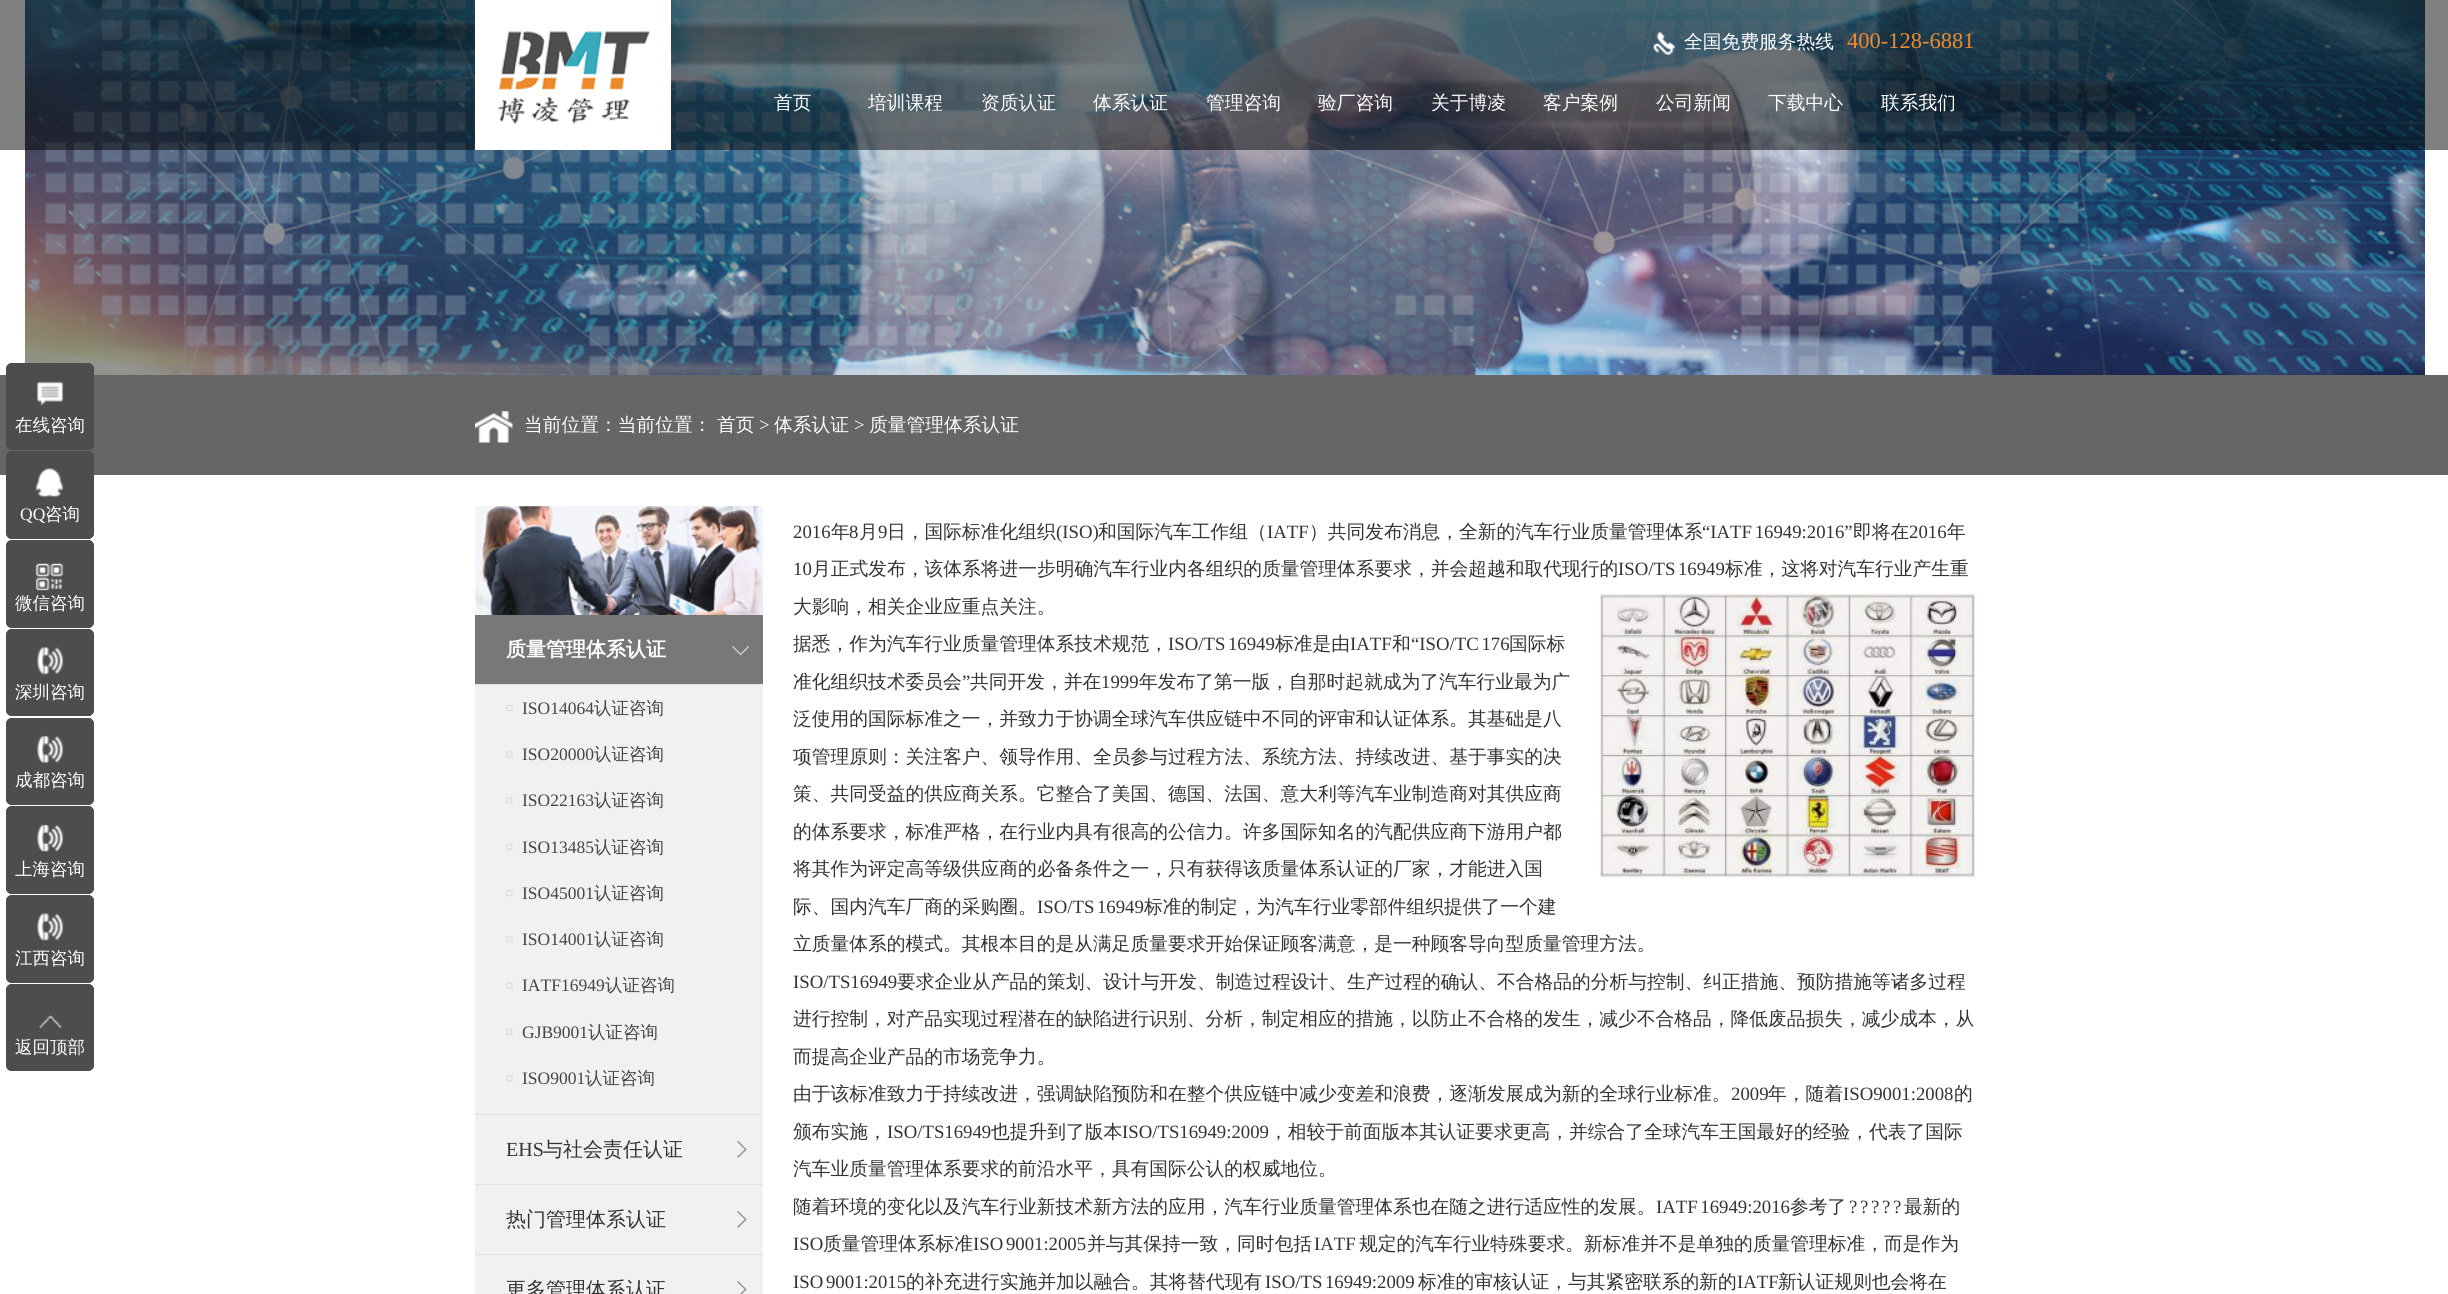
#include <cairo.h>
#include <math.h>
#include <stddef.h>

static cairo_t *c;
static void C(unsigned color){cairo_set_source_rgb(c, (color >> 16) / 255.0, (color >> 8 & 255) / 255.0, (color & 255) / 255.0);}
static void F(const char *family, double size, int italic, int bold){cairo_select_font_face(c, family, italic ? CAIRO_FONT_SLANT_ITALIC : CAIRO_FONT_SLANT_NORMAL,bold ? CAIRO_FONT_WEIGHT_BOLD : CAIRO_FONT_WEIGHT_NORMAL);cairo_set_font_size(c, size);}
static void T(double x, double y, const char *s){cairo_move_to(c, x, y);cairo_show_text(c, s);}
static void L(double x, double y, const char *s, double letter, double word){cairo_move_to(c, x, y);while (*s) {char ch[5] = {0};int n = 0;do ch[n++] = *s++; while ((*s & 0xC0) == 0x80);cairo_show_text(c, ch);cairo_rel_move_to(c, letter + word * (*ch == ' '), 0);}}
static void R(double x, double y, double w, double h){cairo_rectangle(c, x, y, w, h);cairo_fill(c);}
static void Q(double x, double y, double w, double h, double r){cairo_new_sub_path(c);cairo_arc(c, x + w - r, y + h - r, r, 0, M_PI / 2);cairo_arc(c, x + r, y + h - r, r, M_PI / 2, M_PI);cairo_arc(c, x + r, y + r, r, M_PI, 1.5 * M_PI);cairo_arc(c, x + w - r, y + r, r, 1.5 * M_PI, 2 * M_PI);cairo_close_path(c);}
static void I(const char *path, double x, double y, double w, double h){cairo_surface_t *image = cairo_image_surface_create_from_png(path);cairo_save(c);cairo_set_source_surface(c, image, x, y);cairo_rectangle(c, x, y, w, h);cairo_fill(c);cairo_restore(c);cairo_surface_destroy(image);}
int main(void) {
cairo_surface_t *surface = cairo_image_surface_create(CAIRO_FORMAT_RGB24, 2448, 1294);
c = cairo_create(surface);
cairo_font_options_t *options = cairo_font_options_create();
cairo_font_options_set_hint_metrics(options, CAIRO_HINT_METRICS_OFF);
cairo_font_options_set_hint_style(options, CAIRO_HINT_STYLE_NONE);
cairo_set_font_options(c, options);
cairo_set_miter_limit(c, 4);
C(0xffffff);
cairo_paint(c);
I("1.png",25,0,2400,375);
cairo_set_source_rgba(c,0,0,0,0.5);
R(0,0,2448,150);
C(0xffffff);
R(475,0,196,150);
I("2.png",496,31,154,93);
I("3.png",1653,32,22,23);
F("WenQuanYi Zen Hei Medium",18.75,0,0);
T(1684,48,"全国免费服务热线");
F("Liberation Serif",22.5,0,0);
C(0xec8b2e);
T(1847,48,"400-128-6881");
F("WenQuanYi Zen Hei Medium",18.75,0,0);
C(0xffffff);
T(774,109,"首页");
T(868,109,"培训课程");
T(981,109,"资质认证");
T(1093,109,"体系认证");
T(1206,109,"管理咨询");
T(1318,109,"验厂咨询");
T(1431,109,"关于博凌");
T(1543,109,"客户案例");
T(1656,109,"公司新闻");
T(1768,109,"下载中心");
T(1881,109,"联系我们");
C(0x666666);
R(0,375,2448,100);
C(0x4d4d4d);
Q(6,363,88,87,6);
cairo_fill(c);
I("4.png",37,381,27,25);
Q(6.5,363.5,87,86,5.5);
cairo_set_line_width(c,1);
cairo_stroke(c);
F("WenQuanYi Zen Hei Medium",17.5,0,0);
C(0xffffff);
T(15,431,"在线咨询");
C(0x4d4d4d);
Q(6,451,88,88,6);
cairo_fill(c);
I("5.png",35,468,29,30);
Q(6.5,451.5,87,87,5.5);
cairo_stroke(c);
F("Liberation Serif",17.5,0,0);
C(0xffffff);
T(20,520,"QQ");
F("WenQuanYi Zen Hei Medium",17.5,0,0);
T(45,520,"咨询");
C(0x4d4d4d);
Q(6,540,88,88,6);
cairo_fill(c);
I("6.png",35,563,29,28);
Q(6.5,540.5,87,87,5.5);
cairo_stroke(c);
C(0xffffff);
T(15,609,"微信咨询");
C(0x4d4d4d);
Q(6,629,88,87,6);
cairo_fill(c);
I("7.png",37,646,27,29);
Q(6.5,629.5,87,86,5.5);
cairo_stroke(c);
C(0xffffff);
T(15,698,"深圳咨询");
C(0x4d4d4d);
Q(6,718,88,87,6);
cairo_fill(c);
I("8.png",37,735,27,29);
Q(6.5,718.5,87,86,5.5);
cairo_stroke(c);
C(0xffffff);
T(15,786,"成都咨询");
C(0x4d4d4d);
Q(6,806,88,88,6);
cairo_fill(c);
I("9.png",37,824,27,28);
Q(6.5,806.5,87,87,5.5);
cairo_stroke(c);
C(0xffffff);
T(15,875,"上海咨询");
C(0x4d4d4d);
Q(6,895,88,88,6);
cairo_fill(c);
I("10.png",37,913,27,28);
Q(6.5,895.5,87,87,5.5);
cairo_stroke(c);
C(0xffffff);
T(15,964,"江西咨询");
C(0x4d4d4d);
Q(6,984,88,87,6);
cairo_fill(c);
I("11.png",39,1015,23,14);
Q(6.5,984.5,87,86,5.5);
cairo_stroke(c);
C(0xffffff);
T(15,1053,"返回顶部");
I("12.png",475,411,38,32);
F("WenQuanYi Zen Hei Medium",18.75,0,0);
T(524,431,"当前位置：当前位置：");
T(717,431,"首页");
F("Liberation Serif",18.75,0,0);
T(759,431,">");
F("WenQuanYi Zen Hei Medium",18.75,0,0);
T(774,431,"体系认证");
F("Liberation Serif",18.75,0,0);
T(854,431,">");
F("WenQuanYi Zen Hei Medium",18.75,0,0);
T(869,431,"质量管理体系认证");
C(0xf1f1f1);
R(475,506,288,788);
I("13.png",475,506,288,109);
C(0x787878);
R(475,615,288,69);
I("14.png",732,646,17,10);
C(0xe5e3da);
R(475,684,288,1);
F("WenQuanYi Zen Hei",20,0,1);
C(0xffffff);
T(506,656,"质量管理体系认证");
C(0xe5e3da);
R(475,1114,288,1);
I("15.png",506,705,7,7);
F("Liberation Serif",17.5,0,0);
C(0x454545);
T(522,714,"ISO14064");
F("WenQuanYi Zen Hei Medium",17.5,0,0);
T(594,714,"认证咨询");
I("16.png",506,751,7,7);
F("Liberation Serif",17.5,0,0);
T(522,760,"ISO20000");
F("WenQuanYi Zen Hei Medium",17.5,0,0);
T(594,760,"认证咨询");
I("17.png",506,797,7,7);
F("Liberation Serif",17.5,0,0);
T(522,806,"ISO22163");
F("WenQuanYi Zen Hei Medium",17.5,0,0);
T(594,806,"认证咨询");
I("18.png",506,843,7,7);
F("Liberation Serif",17.5,0,0);
T(522,853,"ISO13485");
F("WenQuanYi Zen Hei Medium",17.5,0,0);
T(594,853,"认证咨询");
I("15.png",506,890,7,7);
F("Liberation Serif",17.5,0,0);
T(522,899,"ISO45001");
F("WenQuanYi Zen Hei Medium",17.5,0,0);
T(594,899,"认证咨询");
I("16.png",506,936,7,7);
F("Liberation Serif",17.5,0,0);
T(522,945,"ISO14001");
F("WenQuanYi Zen Hei Medium",17.5,0,0);
T(594,945,"认证咨询");
I("17.png",506,982,7,7);
F("Liberation Serif",17.5,0,0);
T(522,991,"IATF16949");
F("WenQuanYi Zen Hei Medium",17.5,0,0);
T(605,991,"认证咨询");
I("18.png",506,1028,7,7);
F("Liberation Serif",17.5,0,0);
T(522,1038,"GJB9001");
F("WenQuanYi Zen Hei Medium",17.5,0,0);
T(588,1038,"认证咨询");
I("15.png",506,1075,7,7);
F("Liberation Serif",17.5,0,0);
T(522,1084,"ISO9001");
F("WenQuanYi Zen Hei Medium",17.5,0,0);
T(585,1084,"认证咨询");
I("19.png",737,1141,10,17);
C(0xe5e3da);
R(475,1184,288,1);
F("Liberation Serif",20,0,0);
C(0x333333);
T(506,1156,"EHS");
F("WenQuanYi Zen Hei Medium",20,0,0);
T(543,1156,"与社会责任认证");
I("19.png",737,1211,10,17);
C(0xe5e3da);
R(475,1254,288,1);
C(0x333333);
T(506,1226,"热门管理体系认证");
I("20.png",737,1281,10,13);
T(506,1296,"更多管理体系认证");
F("Liberation Serif",18.75,0,0);
T(793,538,"2016");
F("WenQuanYi Zen Hei Medium",18.75,0,0);
T(831,538,"年");
F("Liberation Serif",18.75,0,0);
T(849,538,"8");
F("WenQuanYi Zen Hei Medium",18.75,0,0);
T(859,538,"月");
F("Liberation Serif",18.75,0,0);
T(878,538,"9");
F("WenQuanYi Zen Hei Medium",18.75,0,0);
T(887,538,"日，国际标准化组织");
F("Liberation Serif",18.75,0,0);
T(1056,538,"(ISO)");
F("WenQuanYi Zen Hei Medium",18.75,0,0);
T(1098,538,"和国际汽车工作组（");
F("Liberation Serif",18.75,0,0);
T(1267,538,"IATF");
F("WenQuanYi Zen Hei Medium",18.75,0,0);
T(1309,538,"）共同发布消息，全新的汽车行业质量管理体系");
F("Liberation Serif",18.75,0,0);
L(1702,538,"“IATF 16949:2016”",0,-2);
F("WenQuanYi Zen Hei Medium",18.75,0,0);
T(1853,538,"即将在");
F("Liberation Serif",18.75,0,0);
T(1909,538,"2016");
F("WenQuanYi Zen Hei Medium",18.75,0,0);
T(1947,538,"年");
F("Liberation Serif",18.75,0,0);
T(793,575,"10");
F("WenQuanYi Zen Hei Medium",18.75,0,0);
T(812,575,"月正式发布，该体系将进一步明确汽车行业内各组织的质量管理体系要求，并会超越和取代现行的");
F("Liberation Serif",18.75,0,0);
L(1618,575,"ISO/TS 16949",0,-2);
F("WenQuanYi Zen Hei Medium",18.75,0,0);
T(1725,575,"标准，这将对汽车行业产生重");
T(793,613,"大影响，相关企业应重点关注。");
I("21.png",1600,593,375,285);
T(793,650,"据悉，作为汽车行业质量管理体系技术规范，");
F("Liberation Serif",18.75,0,0);
L(1168,650,"ISO/TS 16949",0,-2);
F("WenQuanYi Zen Hei Medium",18.75,0,0);
T(1275,650,"标准是由");
F("Liberation Serif",18.75,0,0);
T(1350,650,"IATF");
F("WenQuanYi Zen Hei Medium",18.75,0,0);
T(1392,650,"和");
F("Liberation Serif",18.75,0,0);
L(1411,650,"“ISO/TC 176",0,-2);
F("WenQuanYi Zen Hei Medium",18.75,0,0);
T(1509,650,"国际标");
T(793,688,"准化组织技术委员会");
F("Liberation Serif",18.75,0,0);
T(962,688,"”");
F("WenQuanYi Zen Hei Medium",18.75,0,0);
T(970,688,"共同开发，并在");
F("Liberation Serif",18.75,0,0);
T(1101,688,"1999");
F("WenQuanYi Zen Hei Medium",18.75,0,0);
T(1139,688,"年发布了第一版，自那时起就成为了汽车行业最为广");
T(793,725,"泛使用的国际标准之一，并致力于协调全球汽车供应链中不同的评审和认证体系。其基础是八");
T(793,763,"项管理原则：关注客户、领导作用、全员参与过程方法、系统方法、持续改进、基于事实的决");
T(793,800,"策、共同受益的供应商关系。它整合了美国、德国、法国、意大利等汽车业制造商对其供应商");
T(793,838,"的体系要求，标准严格，在行业内具有很高的公信力。许多国际知名的汽配供应商下游用户都");
T(793,875,"将其作为评定高等级供应商的必备条件之一，只有获得该质量体系认证的厂家，才能进入国");
T(793,913,"际、国内汽车厂商的采购圈。");
F("Liberation Serif",18.75,0,0);
L(1037,913,"ISO/TS 16949",0,-2);
F("WenQuanYi Zen Hei Medium",18.75,0,0);
T(1144,913,"标准的制定，为汽车行业零部件组织提供了一个建");
T(793,950,"立质量体系的模式。其根本目的是从满足质量要求开始保证顾客满意，是一种顾客导向型质量管理方法。");
F("Liberation Serif",18.75,0,0);
T(793,988,"ISO/TS16949");
F("WenQuanYi Zen Hei Medium",18.75,0,0);
T(897,988,"要求企业从产品的策划、设计与开发、制造过程设计、生产过程的确认、不合格品的分析与控制、纠正措施、预防措施等诸多过程");
T(793,1025,"进行控制，对产品实现过程潜在的缺陷进行识别、分析，制定相应的措施，以防止不合格的发生，减少不合格品，降低废品损失，减少成本，从");
T(793,1063,"而提高企业产品的市场竞争力。");
T(793,1100,"由于该标准致力于持续改进，强调缺陷预防和在整个供应链中减少变差和浪费，逐渐发展成为新的全球行业标准。");
F("Liberation Serif",18.75,0,0);
T(1731,1100,"2009");
F("WenQuanYi Zen Hei Medium",18.75,0,0);
T(1768,1100,"年，随着");
F("Liberation Serif",18.75,0,0);
T(1843,1100,"ISO9001:2008");
F("WenQuanYi Zen Hei Medium",18.75,0,0);
T(1954,1100,"的");
T(793,1138,"颁布实施，");
F("Liberation Serif",18.75,0,0);
T(887,1138,"ISO/TS16949");
F("WenQuanYi Zen Hei Medium",18.75,0,0);
T(991,1138,"也提升到了版本");
F("Liberation Serif",18.75,0,0);
T(1122,1138,"ISO/TS16949:2009");
F("WenQuanYi Zen Hei Medium",18.75,0,0);
T(1269,1138,"，相较于前面版本其认证要求更高，并综合了全球汽车王国最好的经验，代表了国际");
T(793,1175,"汽车业质量管理体系要求的前沿水平，具有国际公认的权威地位。");
T(793,1213,"随着环境的变化以及汽车行业新技术新方法的应用，汽车行业质量管理体系也在随之进行适应性的发展。");
F("Liberation Serif",18.75,0,0);
L(1656,1213,"IATF 16949:2016",0,-2);
F("WenQuanYi Zen Hei Medium",18.75,0,0);
T(1790,1213,"参考了");
F("Liberation Serif",18.75,0,0);
L(1849,1213,"? ? ? ? ?",0,-2);
F("WenQuanYi Zen Hei Medium",18.75,0,0);
T(1904,1213,"最新的");
F("Liberation Serif",18.75,0,0);
T(793,1250,"ISO");
F("WenQuanYi Zen Hei Medium",18.75,0,0);
T(823,1250,"质量管理体系标准");
F("Liberation Serif",18.75,0,0);
L(973,1250,"ISO 9001:2005",0,-2);
F("WenQuanYi Zen Hei Medium",18.75,0,0);
T(1087,1250,"并与其保持一致，同时包括");
F("Liberation Serif",18.75,0,0);
T(1314,1250,"IATF");
F("WenQuanYi Zen Hei Medium",18.75,0,0);
T(1359,1250,"规定的汽车行业特殊要求。新标准并不是单独的质量管理标准，而是作为");
F("Liberation Serif",18.75,0,0);
L(793,1288,"ISO 9001:2015",0,-2);
F("WenQuanYi Zen Hei Medium",18.75,0,0);
T(906,1288,"的补充进行实施并加以融合。其将替代现有");
F("Liberation Serif",18.75,0,0);
L(1265,1288,"ISO/TS 16949:2009",0,-2);
F("WenQuanYi Zen Hei Medium",18.75,0,0);
T(1418,1288,"标准的审核认证，与其紧密联系的新的");
F("Liberation Serif",18.75,0,0);
T(1737,1288,"IATF");
F("WenQuanYi Zen Hei Medium",18.75,0,0);
T(1778,1288,"新认证规则也会将在");
cairo_surface_write_to_png(surface, "o.png");
cairo_font_options_destroy(options);
cairo_destroy(c);
cairo_surface_destroy(surface);
return 0;
}
